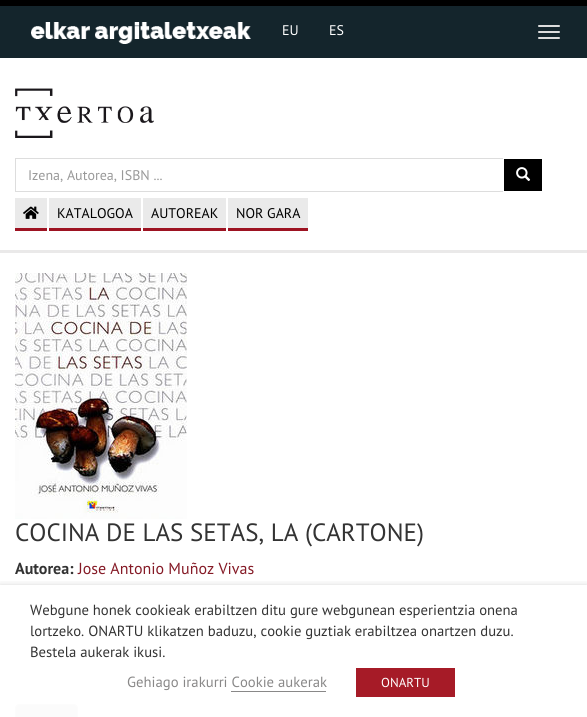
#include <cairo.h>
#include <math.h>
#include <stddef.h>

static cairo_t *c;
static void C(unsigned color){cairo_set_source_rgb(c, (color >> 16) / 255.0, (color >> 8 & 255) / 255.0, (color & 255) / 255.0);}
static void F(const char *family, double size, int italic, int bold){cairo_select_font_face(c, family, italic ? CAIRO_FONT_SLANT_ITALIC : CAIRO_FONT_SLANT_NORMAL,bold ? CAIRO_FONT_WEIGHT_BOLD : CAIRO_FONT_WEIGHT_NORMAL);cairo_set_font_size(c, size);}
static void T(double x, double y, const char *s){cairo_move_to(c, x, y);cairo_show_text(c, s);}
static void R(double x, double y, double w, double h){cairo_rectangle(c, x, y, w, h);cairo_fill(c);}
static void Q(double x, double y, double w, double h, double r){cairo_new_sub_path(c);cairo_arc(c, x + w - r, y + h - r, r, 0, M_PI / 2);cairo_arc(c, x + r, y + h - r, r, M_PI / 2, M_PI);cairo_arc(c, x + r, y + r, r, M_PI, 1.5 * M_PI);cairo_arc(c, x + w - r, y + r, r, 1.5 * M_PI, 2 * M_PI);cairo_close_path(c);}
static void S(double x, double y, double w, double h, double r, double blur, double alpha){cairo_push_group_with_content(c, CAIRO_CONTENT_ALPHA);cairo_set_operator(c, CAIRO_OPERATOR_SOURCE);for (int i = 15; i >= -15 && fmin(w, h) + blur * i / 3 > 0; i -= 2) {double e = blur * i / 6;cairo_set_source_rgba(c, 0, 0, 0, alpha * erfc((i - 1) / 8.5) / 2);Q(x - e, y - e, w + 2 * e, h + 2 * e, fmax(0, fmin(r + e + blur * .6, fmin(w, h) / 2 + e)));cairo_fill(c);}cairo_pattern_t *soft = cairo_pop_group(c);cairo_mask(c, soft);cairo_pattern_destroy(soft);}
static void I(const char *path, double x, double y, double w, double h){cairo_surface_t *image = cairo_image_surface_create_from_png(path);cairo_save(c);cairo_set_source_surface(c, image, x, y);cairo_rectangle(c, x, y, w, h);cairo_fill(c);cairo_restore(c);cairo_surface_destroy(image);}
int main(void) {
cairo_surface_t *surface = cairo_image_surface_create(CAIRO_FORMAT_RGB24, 587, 717);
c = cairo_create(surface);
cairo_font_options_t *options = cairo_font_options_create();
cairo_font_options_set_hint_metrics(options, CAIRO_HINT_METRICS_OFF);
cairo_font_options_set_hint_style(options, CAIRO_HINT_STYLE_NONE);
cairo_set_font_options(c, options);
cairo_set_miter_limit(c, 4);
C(0xffffff);
cairo_paint(c);
C(0x14252c);
R(0,6,587,52);
C(0x000000);
R(0,0,587,6);
I("1.png",31,22,220,22);
F("PT Sans",14,0,0);
C(0xffffff);
T(282,35,"EU");
T(329,35,"ES");
C(0xdddddd);
Q(538,25,22,2,1);
cairo_fill(c);
Q(538,31,22,2,1);
cairo_fill(c);
Q(538,37,22,2,1);
cairo_fill(c);
I("2.png",15,88,139,50);
cairo_rectangle(c,15.5,158.5,488,33);
cairo_set_line_width(c,1);
cairo_stroke(c);
C(0x999999);
T(28,180,"Izena, Autorea, ISBN ...");
C(0x000000);
cairo_rectangle(c,503.5,158.5,39,33);
cairo_fill_preserve(c);
C(0xffffff);
cairo_stroke(c);
I("3.png",516,167,15,14);
C(0xeaeaea);
R(15,198,32,30);
C(0x9d1322);
R(15,228,32,3);
I("4.png",23,206,16,13);
C(0xeaeaea);
R(49,198,92,30);
C(0x9d1322);
R(49,228,92,3);
C(0x000000);
T(57,218,"KATALOGOA");
C(0xeaeaea);
R(143,198,83,30);
C(0x9d1322);
R(143,228,83,3);
C(0x000000);
T(151,218,"AUTOREAK");
C(0xeaeaea);
R(228,198,80,30);
C(0x9d1322);
R(228,228,80,3);
C(0x000000);
T(236,218,"NOR GARA");
C(0xeae9e9);
R(0,250,587,3);
I("5.png",15,273,172,246);
F("PT Sans",25,0,0);
C(0x333333);
T(15,541,"COCINA DE LAS SETAS, LA (CARTONE)");
F("PT Sans",16,0,1);
T(15,574,"Autorea:");
F("PT Sans",16,0,0);
C(0x851a26);
T(78,574,"Jose Antonio Muñoz Vivas");
C(0x666666);
Q(15.5,704.5,62,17,3.5);
cairo_fill_preserve(c);
C(0x999999);
cairo_stroke(c);
cairo_save(c);
cairo_rectangle(c,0,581,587,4);
cairo_clip(c);
C(0x000000);
S(0,590,587,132,0,5,.5);
cairo_restore(c);
cairo_set_source_rgba(c,1,1,1,0.97);
R(15,704,63,13);
F("PT Sans",14.7,0,0);
C(0x333333);
T(30,615,"Webgune honek cookieak erabiltzen ditu gure webgunean esperientzia onena");
T(30,636,"lortzeko. ONARTU klikatzen baduzu, cookie guztiak erabiltzea onartzen duzu.");
T(30,657,"Bestela aukerak ikusi.");
C(0x898888);
T(127,687,"Gehiago irakurri Cookie aukerak");
C(0xa61b27);
R(356,668,99,29);
F("PT Sans",13,0,0);
C(0xffffff);
T(381,687,"ONARTU");
C(0x898888);
R(231,691,95,1);
cairo_surface_write_to_png(surface, "o.png");
cairo_font_options_destroy(options);
cairo_destroy(c);
cairo_surface_destroy(surface);
return 0;
}
